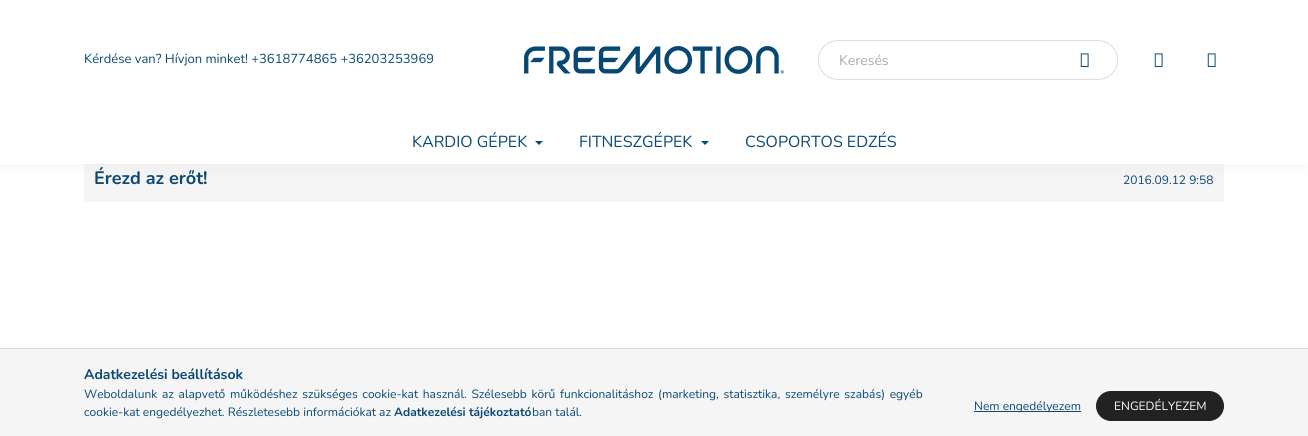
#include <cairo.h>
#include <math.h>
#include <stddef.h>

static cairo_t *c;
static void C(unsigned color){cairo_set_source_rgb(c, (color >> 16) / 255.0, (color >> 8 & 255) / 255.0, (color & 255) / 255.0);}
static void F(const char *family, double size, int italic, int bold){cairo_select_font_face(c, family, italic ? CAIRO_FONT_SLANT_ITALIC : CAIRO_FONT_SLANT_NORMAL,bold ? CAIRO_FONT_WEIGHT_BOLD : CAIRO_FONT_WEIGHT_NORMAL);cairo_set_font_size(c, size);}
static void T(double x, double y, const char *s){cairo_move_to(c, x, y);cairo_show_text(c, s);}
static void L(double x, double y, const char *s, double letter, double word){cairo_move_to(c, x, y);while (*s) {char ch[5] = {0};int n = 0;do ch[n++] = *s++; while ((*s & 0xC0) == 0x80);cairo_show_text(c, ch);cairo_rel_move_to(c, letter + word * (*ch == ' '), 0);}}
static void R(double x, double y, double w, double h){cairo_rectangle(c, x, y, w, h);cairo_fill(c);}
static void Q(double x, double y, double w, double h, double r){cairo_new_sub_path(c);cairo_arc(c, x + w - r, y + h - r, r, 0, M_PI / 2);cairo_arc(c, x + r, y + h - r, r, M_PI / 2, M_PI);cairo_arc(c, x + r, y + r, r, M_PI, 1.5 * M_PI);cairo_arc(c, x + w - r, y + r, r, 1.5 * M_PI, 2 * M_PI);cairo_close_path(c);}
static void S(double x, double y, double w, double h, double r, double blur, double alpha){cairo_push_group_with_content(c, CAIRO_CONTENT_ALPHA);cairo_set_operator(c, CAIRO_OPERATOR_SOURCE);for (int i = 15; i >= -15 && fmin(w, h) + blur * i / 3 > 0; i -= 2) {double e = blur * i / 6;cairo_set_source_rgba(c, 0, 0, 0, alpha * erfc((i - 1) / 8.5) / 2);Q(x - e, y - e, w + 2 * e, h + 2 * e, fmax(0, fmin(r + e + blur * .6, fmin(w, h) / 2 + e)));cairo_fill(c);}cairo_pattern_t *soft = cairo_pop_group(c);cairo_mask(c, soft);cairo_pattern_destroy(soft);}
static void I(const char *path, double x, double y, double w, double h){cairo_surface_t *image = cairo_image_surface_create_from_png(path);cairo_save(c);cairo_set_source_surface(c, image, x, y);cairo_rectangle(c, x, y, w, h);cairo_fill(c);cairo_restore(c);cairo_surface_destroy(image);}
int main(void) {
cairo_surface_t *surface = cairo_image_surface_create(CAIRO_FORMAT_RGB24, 1308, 436);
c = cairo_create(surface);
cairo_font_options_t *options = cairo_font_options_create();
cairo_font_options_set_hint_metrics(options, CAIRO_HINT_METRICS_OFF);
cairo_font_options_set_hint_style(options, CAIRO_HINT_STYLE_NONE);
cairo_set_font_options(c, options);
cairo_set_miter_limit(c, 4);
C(0xffffff);
cairo_paint(c);
C(0xf5f5f5);
R(84,164,1140,38);
C(0x000000);
S(0,0,1308,164,0,10,.05);
C(0xffffff);
R(0,0,1308,164);
F("Nunito",13,0,0);
C(0x0a4973);
T(84,63,"Kérdése van? Hívjon minket! +3618774865 +36203253969");
I("1.png",524,46,260,28);
Q(818.5,40.5,299,39,19.5);
C(0xdddddd);
cairo_set_line_width(c,1);
cairo_stroke(c);
F("Nunito",14,0,0);
C(0xaaaaaa);
T(839,65,"Keresés");
I("2.png",1080,53,9,14);
I("2.png",1154,53,9,14);
I("2.png",1207,53,9,14);
F("Nunito",16,0,0);
C(0x0a4973);
T(412,147,"KARDIO GÉPEK");
cairo_new_path(c);
cairo_move_to(c,535,141);
cairo_line_to(c,543,141);
cairo_line_to(c,539,145);
cairo_close_path(c);
cairo_fill(c);
T(579,147,"FITNESZGÉPEK");
cairo_new_path(c);
cairo_move_to(c,701,141);
cairo_line_to(c,709,141);
cairo_line_to(c,705,145);
cairo_close_path(c);
cairo_fill(c);
T(745,147,"CSOPORTOS EDZÉS");
F("Nunito",18,0,1);
T(94,184,"Érezd az erőt!");
F("Nunito",12,0,0);
T(1123,184,"2016.09.12 9:58");
C(0xf5f5f5);
R(0,349,1308,87);
C(0xdddddd);
R(0,348,1308,1);
F("Nunito",14,0,1);
C(0x0a4973);
T(84,379,"Adatkezelési beállítások");
F("Nunito",12,0,0);
L(84,398,"Weboldalunk az alapvető működéshez szükséges cookie-kat használ. Szélesebb körű funkcionalitáshoz (marketing, statisztika, személyre szabás) egyéb",0,1.6);
T(84,416,"cookie-kat engedélyezhet. Részletesebb információkat az");
F("Nunito",12,0,1);
T(394,416,"Adatkezelési tájékoztató");
F("Nunito",12,0,0);
T(532,416,"ban talál.");
R(974,411,107,1);
T(974,410,"Nem engedélyezem");
C(0x222222);
Q(1096.5,391.5,127,29,14.5);
cairo_fill_preserve(c);
cairo_stroke(c);
C(0xffffff);
T(1114,410,"ENGEDÉLYEZEM");
cairo_surface_write_to_png(surface, "o.png");
cairo_font_options_destroy(options);
cairo_destroy(c);
cairo_surface_destroy(surface);
return 0;
}
